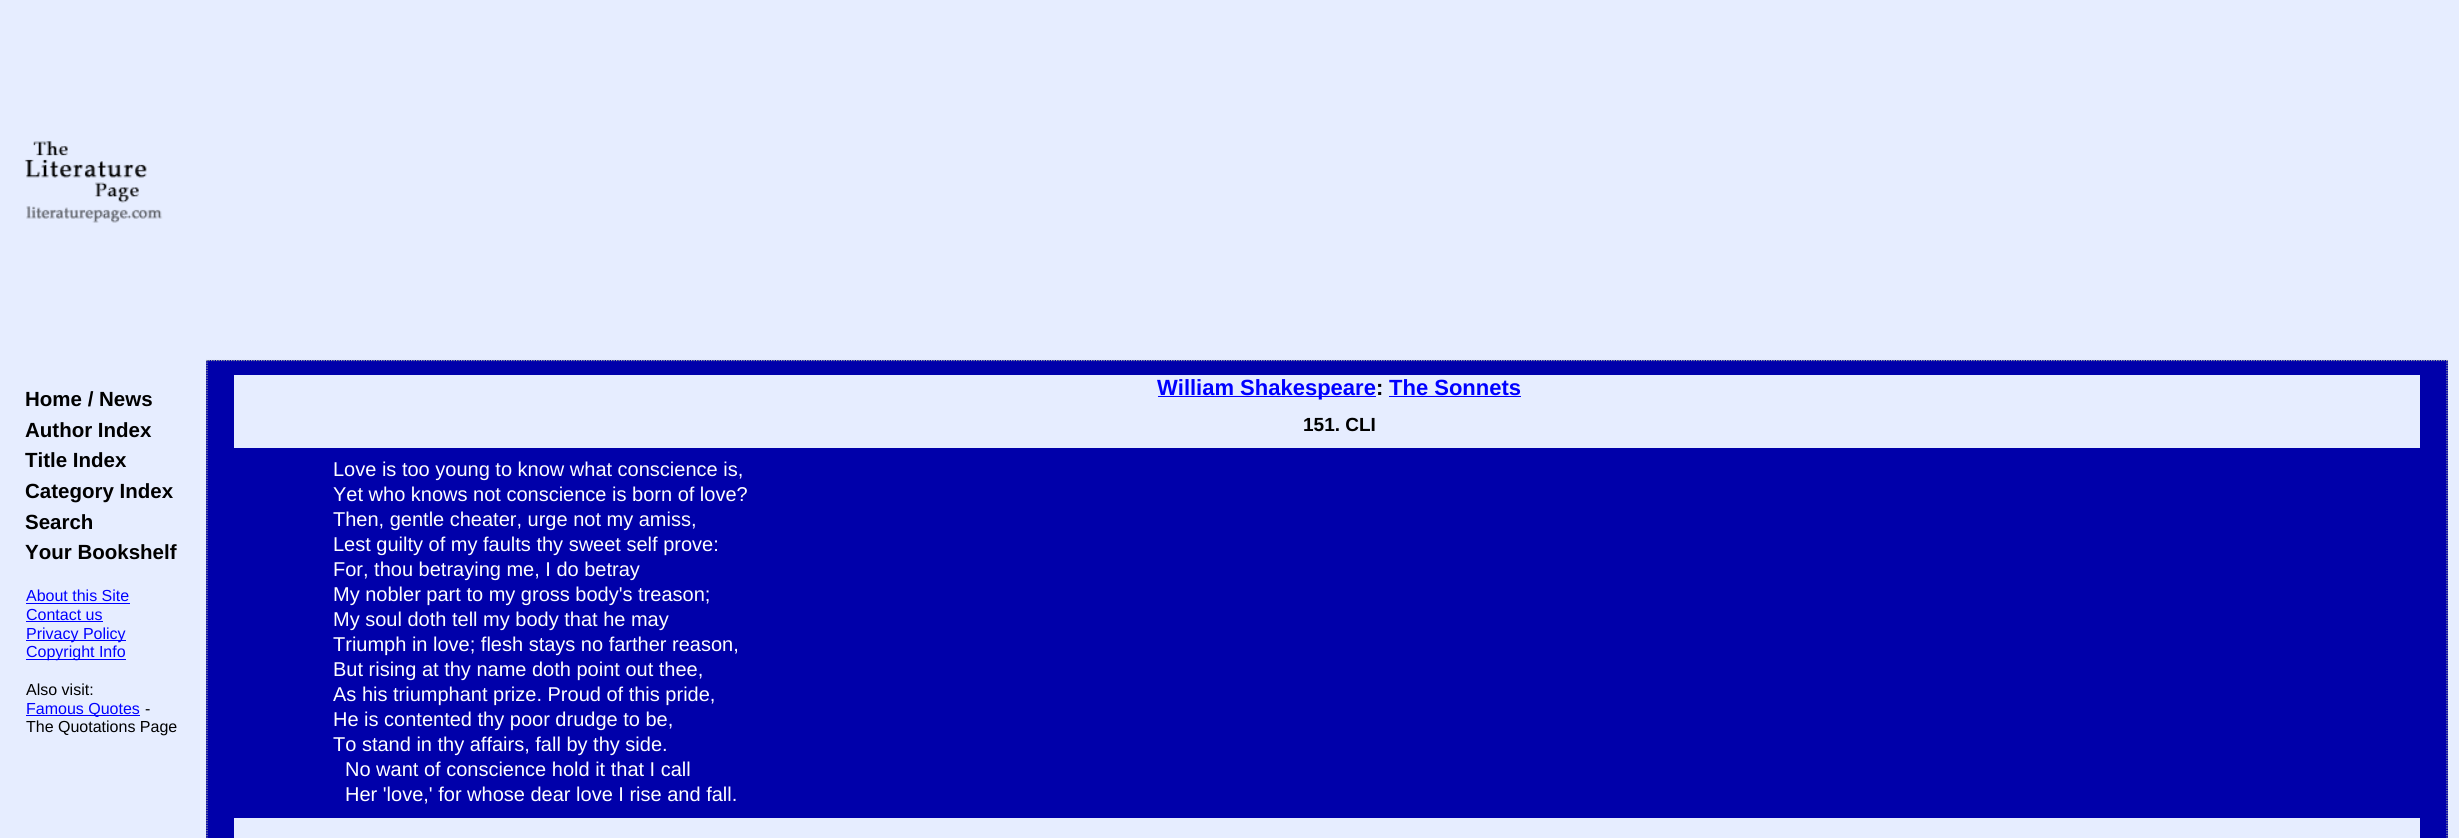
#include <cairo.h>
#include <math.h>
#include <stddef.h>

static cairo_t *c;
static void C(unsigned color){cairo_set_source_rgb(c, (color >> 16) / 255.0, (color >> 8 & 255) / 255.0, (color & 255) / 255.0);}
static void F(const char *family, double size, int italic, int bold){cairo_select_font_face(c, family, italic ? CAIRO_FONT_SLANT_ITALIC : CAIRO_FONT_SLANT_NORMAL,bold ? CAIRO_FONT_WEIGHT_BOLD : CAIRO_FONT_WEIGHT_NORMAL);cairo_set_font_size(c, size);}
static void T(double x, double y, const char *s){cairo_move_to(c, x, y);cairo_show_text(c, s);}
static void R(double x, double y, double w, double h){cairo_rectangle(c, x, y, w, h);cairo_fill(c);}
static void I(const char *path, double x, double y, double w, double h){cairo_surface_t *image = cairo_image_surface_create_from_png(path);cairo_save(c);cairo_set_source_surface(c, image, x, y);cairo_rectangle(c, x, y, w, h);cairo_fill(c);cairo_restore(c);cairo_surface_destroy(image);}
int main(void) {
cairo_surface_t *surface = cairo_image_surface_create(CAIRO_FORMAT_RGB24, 2459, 838);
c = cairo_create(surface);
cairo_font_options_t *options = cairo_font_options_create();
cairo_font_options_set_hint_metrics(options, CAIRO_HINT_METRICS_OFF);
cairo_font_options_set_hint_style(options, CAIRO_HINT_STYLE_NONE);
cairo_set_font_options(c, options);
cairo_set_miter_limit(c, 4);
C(0xe6edff);
cairo_paint(c);
I("1.png",24,141,139,82);
F("Liberation Sans",20.5,0,1);
C(0x000000);
T(25,406,"Home / News");
T(25,437,"Author Index");
T(25,467,"Title Index");
T(25,498,"Category Index");
T(25,529,"Search");
T(25,559,"Your Bookshelf");
F("Liberation Sans",16,0,0);
C(0x0000ff);
T(26,601,"About this Site");
R(26,603,104,1);
T(26,620,"Contact us");
R(26,621,77,1);
R(26,640,100,1);
T(26,639,"Privacy Policy");
R(26,659,100,1);
T(26,657,"Copyright Info");
C(0x000000);
T(26,695,"Also visit:");
C(0x0000ff);
R(26,715,114,1);
T(26,714,"Famous Quotes");
C(0x000000);
T(145,714,"-");
T(26,732,"The Quotations Page");
C(0x0000aa);
R(206,360,2242,478);
cairo_new_path(c);
cairo_move_to(c,206,360.5);
cairo_line_to(c,2447.5,360.5);
C(0xa6ad9f);
cairo_set_line_width(c,1.2);
cairo_set_dash(c,(double[]){1.25,1.25},2,0);
cairo_stroke(c);
cairo_new_path(c);
cairo_move_to(c,2447,360);
cairo_line_to(c,2447,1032.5);
cairo_stroke(c);
cairo_new_path(c);
cairo_move_to(c,207,360);
cairo_line_to(c,207,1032.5);
cairo_stroke(c);
C(0xe6edff);
R(234,375,2186,73);
C(0x0000ff);
R(1158,396,218,1);
F("Liberation Sans",22,0,1);
T(1157,395,"William Shakespeare");
C(0x000000);
T(1376,395,":");
C(0x0000ff);
T(1389,395,"The Sonnets");
R(1389,396,132,1);
F("Liberation Sans",19,0,1);
C(0x000000);
T(1303,431,"151. CLI");
F("Liberation Sans",20,0,0);
C(0xffffff);
T(333,476,"Love is too young to know what conscience is,");
T(333,501,"Yet who knows not conscience is born of love?");
T(333,526,"Then, gentle cheater, urge not my amiss,");
T(333,551,"Lest guilty of my faults thy sweet self prove:");
T(333,576,"For, thou betraying me, I do betray");
T(333,601,"My nobler part to my gross body's treason;");
T(333,626,"My soul doth tell my body that he may");
T(333,651,"Triumph in love; flesh stays no farther reason,");
T(333,676,"But rising at thy name doth point out thee,");
T(333,701,"As his triumphant prize. Proud of this pride,");
T(333,726,"He is contented thy poor drudge to be,");
T(333,751,"To stand in thy affairs, fall by thy side.");
T(345,776,"No want of conscience hold it that I call");
T(345,801,"Her 'love,' for whose dear love I rise and fall.");
C(0xe6edff);
R(234,818,2186,20);
cairo_surface_write_to_png(surface, "o.png");
cairo_font_options_destroy(options);
cairo_destroy(c);
cairo_surface_destroy(surface);
return 0;
}
